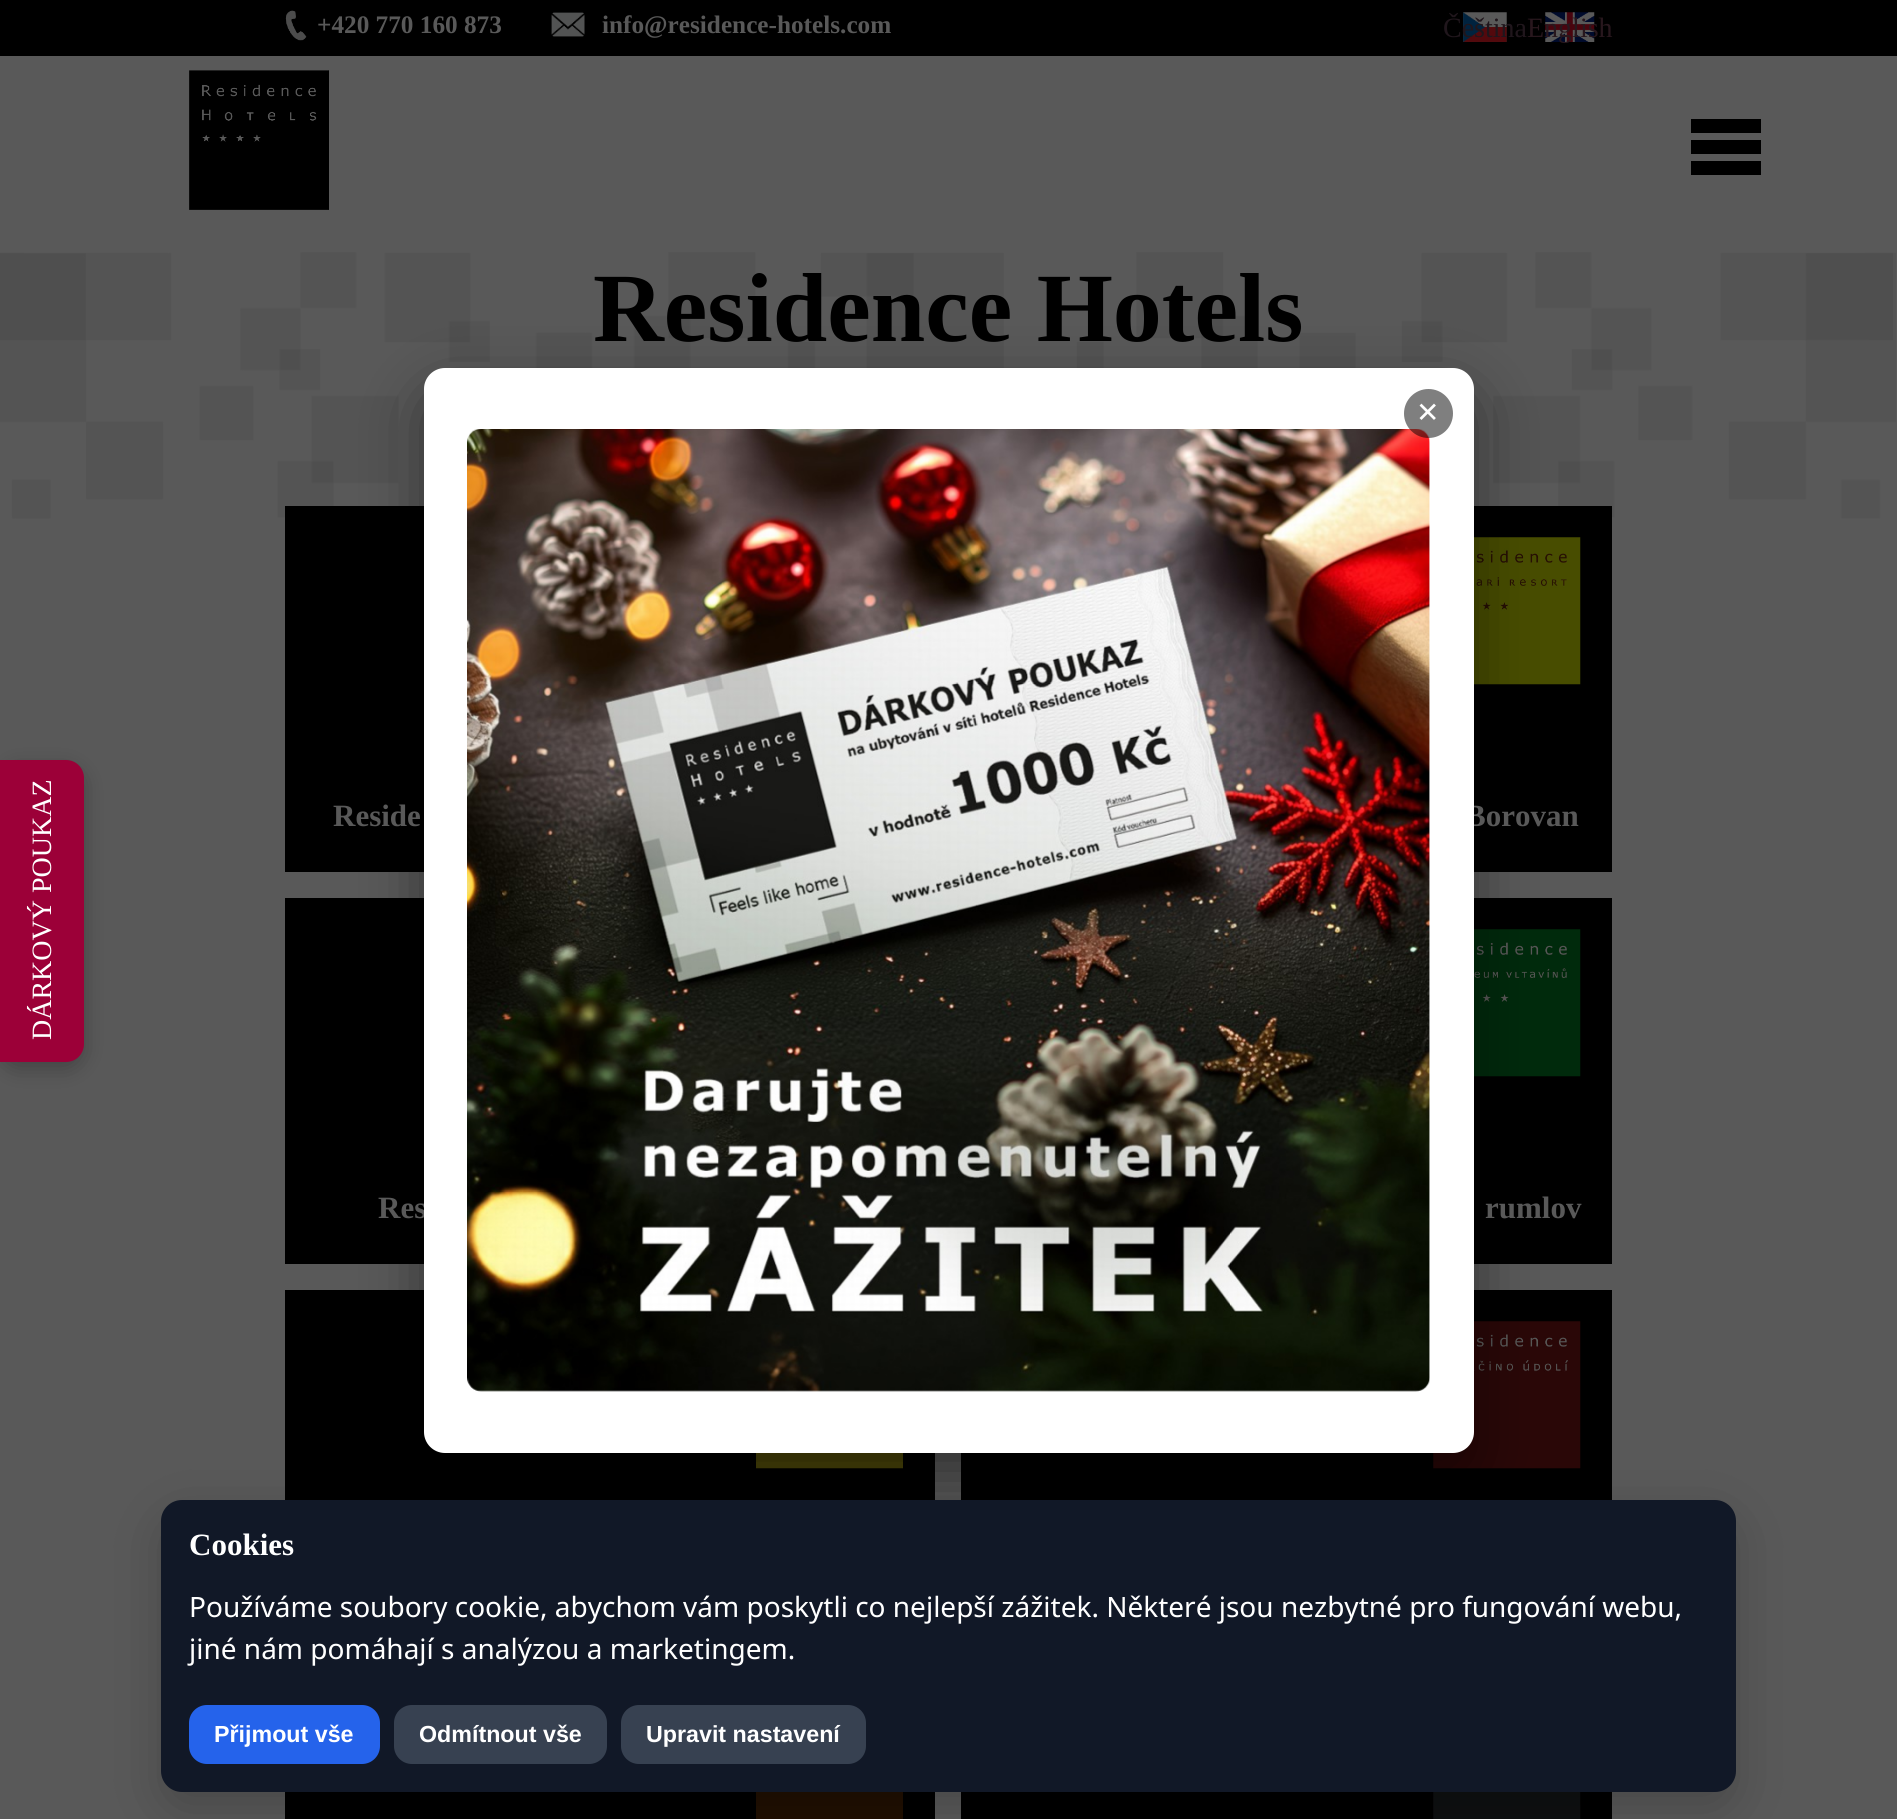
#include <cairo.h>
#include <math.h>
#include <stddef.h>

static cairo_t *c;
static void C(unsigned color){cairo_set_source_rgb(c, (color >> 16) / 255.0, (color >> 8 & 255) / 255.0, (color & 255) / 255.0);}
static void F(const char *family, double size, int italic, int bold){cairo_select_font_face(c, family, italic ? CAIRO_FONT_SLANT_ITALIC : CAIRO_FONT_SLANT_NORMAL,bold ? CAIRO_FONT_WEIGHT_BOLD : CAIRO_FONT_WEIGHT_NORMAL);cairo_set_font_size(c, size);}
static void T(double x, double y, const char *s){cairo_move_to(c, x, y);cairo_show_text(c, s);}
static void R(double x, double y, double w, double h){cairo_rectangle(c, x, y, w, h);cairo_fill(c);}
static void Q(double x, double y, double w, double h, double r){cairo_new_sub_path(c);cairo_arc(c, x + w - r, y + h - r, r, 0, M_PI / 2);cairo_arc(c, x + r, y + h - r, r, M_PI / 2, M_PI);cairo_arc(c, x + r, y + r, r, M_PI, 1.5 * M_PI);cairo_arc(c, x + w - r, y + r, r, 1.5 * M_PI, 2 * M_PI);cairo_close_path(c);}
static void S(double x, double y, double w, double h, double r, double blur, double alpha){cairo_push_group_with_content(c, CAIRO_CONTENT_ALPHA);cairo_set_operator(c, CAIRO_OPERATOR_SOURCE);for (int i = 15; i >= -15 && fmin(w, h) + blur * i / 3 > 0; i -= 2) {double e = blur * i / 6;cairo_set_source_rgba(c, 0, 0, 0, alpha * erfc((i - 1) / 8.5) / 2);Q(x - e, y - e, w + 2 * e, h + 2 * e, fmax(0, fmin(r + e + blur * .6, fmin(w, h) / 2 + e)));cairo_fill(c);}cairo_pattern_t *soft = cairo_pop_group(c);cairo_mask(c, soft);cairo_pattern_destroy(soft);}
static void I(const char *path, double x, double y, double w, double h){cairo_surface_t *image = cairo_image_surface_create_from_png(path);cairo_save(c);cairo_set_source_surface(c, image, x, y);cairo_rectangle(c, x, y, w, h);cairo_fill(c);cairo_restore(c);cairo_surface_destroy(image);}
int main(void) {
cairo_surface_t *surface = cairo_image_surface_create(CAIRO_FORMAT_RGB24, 1897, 1819);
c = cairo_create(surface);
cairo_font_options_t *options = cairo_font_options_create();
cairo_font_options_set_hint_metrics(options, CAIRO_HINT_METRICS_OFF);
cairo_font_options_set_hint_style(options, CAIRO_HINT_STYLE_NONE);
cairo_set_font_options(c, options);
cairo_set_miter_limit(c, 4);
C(0x595959);
cairo_paint(c);
C(0x000000);
R(0,0,1897,56);
I("1.png",285,10,22,31);
F("Liberation Serif",25.25,0,1);
C(0x595959);
T(317,33,"+420 770 160 873");
I("2.png",551,12,34,25);
T(602,33,"info@residence-hotels.com");
I("3.png",1463,12,44,30);
F("Liberation Serif",28,0,0);
C(0x20161c);
T(1443,37,"Čeština");
I("4.png",1545,12,50,30);
C(0x28171d);
T(1527,37,"English");
I("5.png",189,70,140,140);
C(0x000000);
R(1691,140,70,14);
R(1691,119,70,14);
R(1691,161,70,14);
I("6.png",0,252,1896,315);
F("Liberation Serif",98,0,1);
T(593,341,"Residence Hotels");
R(285,506,139,366);
R(1474,506,138,366);
I("8.png",1474,537,107,148);
R(285,898,139,366);
R(1474,898,138,366);
I("9.png",1474,929,107,148);
R(285,1290,650,210);
I("10.png",756,1453,147,16);
R(961,1290,651,210);
I("11.png",1433,1321,148,148);
C(0x000000);
S(424,392,1050,1085,21,30.5,.45);
F("Liberation Serif",31,0,1);
C(0x595959);
T(1465,826,"Borovan");
T(378,1218,"Res");
C(0xffffff);
Q(424,368,1050,1085,21);
cairo_fill(c);
I("7.png",467,429,963,963);
cairo_set_source_rgba(c,0,0,0,0.5);
cairo_arc(c,1428.5,413.5,24.5,0,2 * M_PI);
cairo_fill(c);
F("DejaVu Sans",28,0,0);
C(0xffffff);
T(1416,422,"✕");
C(0x000000);
S(0,767,84,302,18,10.5,.25);
C(0x9c0038);
cairo_new_path(c);
cairo_move_to(c,0,760);
cairo_line_to(c,66,760);
cairo_curve_to(c,76,760,84,768,84,778);
cairo_line_to(c,84,1044);
cairo_curve_to(c,84,1054,76,1062,66,1062);
cairo_line_to(c,0,1062);
cairo_close_path(c);
cairo_fill(c);
F("Liberation Serif",28,0,0);
C(0xffffff);
cairo_save(c);
cairo_translate(c,51,1040);
cairo_rotate(c,-90 * M_PI / 180);
T(0,0,"DÁRKOVÝ POUKAZ");
cairo_restore(c);
F("Liberation Serif",31,0,1);
C(0x595959);
T(333,826,"Reside");
T(1485,1218,"rumlov");
C(0x000000);
R(285,1792,650,27);
I("12.png",756,1792,147,27);
R(961,1792,651,27);
I("13.png",1433,1792,148,27);
C(0x000000);
S(161,1517,1575,293,21,26,.2);
C(0x111827);
Q(161,1500,1575,292,21);
cairo_fill(c);
C(0xffffff);
T(189,1555,"Cookies");
F("Noto Sans",28,0,0);
T(189,1617,"Používáme soubory cookie, abychom vám poskytli co nejlepší zážitek. Některé jsou nezbytné pro fungování webu,");
T(189,1659,"jiné nám pomáhají s analýzou a marketingem.");
C(0x2563eb);
Q(189,1705,191,59,18);
cairo_fill(c);
F("Liberation Sans",23.25,0,1);
C(0xffffff);
T(214,1742,"Přijmout vše");
C(0x374151);
Q(394,1705,213,59,18);
cairo_fill(c);
C(0xffffff);
T(419,1742,"Odmítnout vše");
C(0x374151);
Q(621,1705,245,59,18);
cairo_fill(c);
C(0xffffff);
T(646,1742,"Upravit nastavení");
cairo_surface_write_to_png(surface, "o.png");
cairo_font_options_destroy(options);
cairo_destroy(c);
cairo_surface_destroy(surface);
return 0;
}
